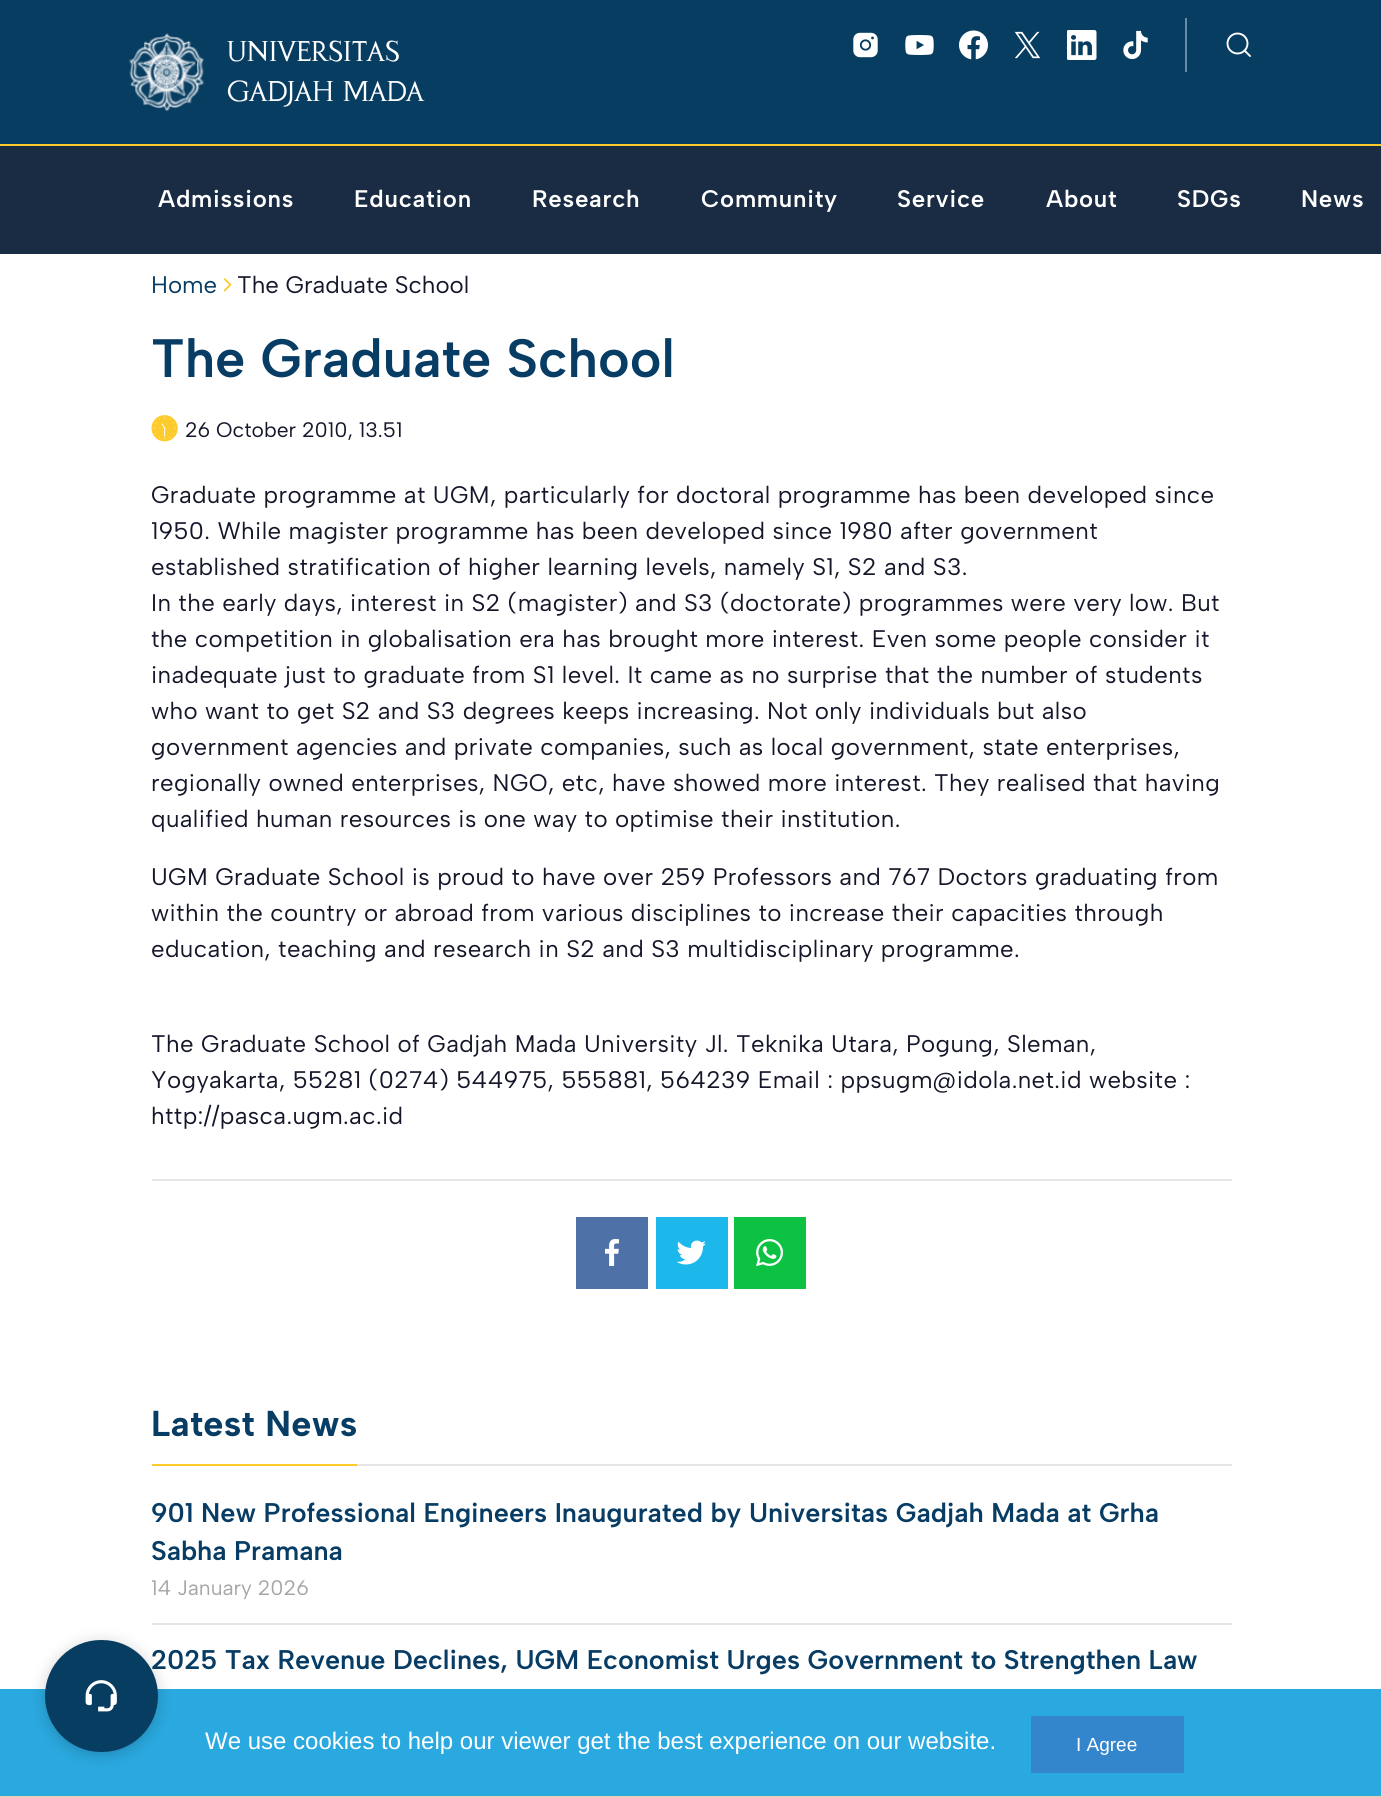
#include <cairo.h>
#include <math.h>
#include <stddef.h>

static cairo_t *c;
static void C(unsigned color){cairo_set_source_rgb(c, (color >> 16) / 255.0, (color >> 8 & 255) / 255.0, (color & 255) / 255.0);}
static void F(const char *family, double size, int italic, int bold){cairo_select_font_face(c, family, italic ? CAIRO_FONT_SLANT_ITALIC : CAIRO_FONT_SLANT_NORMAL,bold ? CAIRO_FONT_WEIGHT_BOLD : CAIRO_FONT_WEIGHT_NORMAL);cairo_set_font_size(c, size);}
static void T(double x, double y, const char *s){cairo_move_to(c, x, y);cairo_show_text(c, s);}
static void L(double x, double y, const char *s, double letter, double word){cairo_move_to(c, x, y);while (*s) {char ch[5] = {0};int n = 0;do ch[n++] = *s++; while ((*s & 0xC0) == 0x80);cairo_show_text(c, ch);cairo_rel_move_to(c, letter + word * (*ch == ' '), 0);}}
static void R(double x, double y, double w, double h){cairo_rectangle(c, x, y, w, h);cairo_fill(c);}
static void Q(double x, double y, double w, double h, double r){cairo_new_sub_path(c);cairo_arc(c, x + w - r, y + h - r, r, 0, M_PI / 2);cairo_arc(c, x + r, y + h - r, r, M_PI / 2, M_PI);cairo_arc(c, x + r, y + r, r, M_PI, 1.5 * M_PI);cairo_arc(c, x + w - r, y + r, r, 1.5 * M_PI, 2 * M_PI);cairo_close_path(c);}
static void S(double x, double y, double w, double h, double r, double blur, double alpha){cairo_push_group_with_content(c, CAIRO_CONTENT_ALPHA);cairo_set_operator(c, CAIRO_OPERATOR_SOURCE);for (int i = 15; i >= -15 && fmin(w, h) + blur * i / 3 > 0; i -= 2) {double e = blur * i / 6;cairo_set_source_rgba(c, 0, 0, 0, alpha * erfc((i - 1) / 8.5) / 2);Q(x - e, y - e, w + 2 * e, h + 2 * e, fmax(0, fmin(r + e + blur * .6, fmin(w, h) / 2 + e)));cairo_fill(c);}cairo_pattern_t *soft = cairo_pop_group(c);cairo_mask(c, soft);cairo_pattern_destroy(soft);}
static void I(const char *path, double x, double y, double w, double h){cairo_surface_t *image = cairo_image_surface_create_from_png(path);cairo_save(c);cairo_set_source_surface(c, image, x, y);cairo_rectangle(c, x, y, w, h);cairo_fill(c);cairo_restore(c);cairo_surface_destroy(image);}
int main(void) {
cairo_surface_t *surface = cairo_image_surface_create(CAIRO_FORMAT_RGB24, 1381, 1797);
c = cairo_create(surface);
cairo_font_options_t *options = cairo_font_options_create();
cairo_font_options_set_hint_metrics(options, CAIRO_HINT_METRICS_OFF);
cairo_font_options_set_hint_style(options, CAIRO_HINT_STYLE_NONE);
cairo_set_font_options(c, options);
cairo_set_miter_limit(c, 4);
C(0xffffff);
cairo_paint(c);
C(0x083d62);
R(0,0,1381,144);
I("1.png",128,33,76,78);
F("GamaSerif",28.5,0,0);
C(0xffffff);
T(227,61,"UNIVERSITAS");
T(227,101,"GADJAH MADA");
I("2.png",853,32,25,26);
I("3.png",905,35,29,20);
I("4.png",959,30,29,30);
I("5.png",1014,31,27,28);
I("6.png",1067,30,30,30);
I("7.png",1123,30,25,30);
C(0x6b8ba1);
R(1185,18,2,54);
cairo_arc(c,1237.5,43.5,10,0,2 * M_PI);
C(0xffffff);
cairo_set_line_width(c,1.9);
cairo_stroke(c);
cairo_new_path(c);
cairo_move_to(c,1244.5,50.5);
cairo_line_to(c,1250,56);
cairo_set_line_cap(c,CAIRO_LINE_CAP_ROUND);
cairo_set_line_join(c,CAIRO_LINE_JOIN_ROUND);
cairo_stroke(c);
C(0x1a2c43);
R(0,146,1381,108);
C(0xfdcb2c);
R(0,144,1381,2);
F("Albert Sans SemiBold",24,0,0);
C(0xffffff);
L(158,207,"Admissions",.75,0);
L(354,207,"Education",.75,0);
L(532,207,"Research",.75,0);
L(701,207,"Community",.75,0);
L(897,207,"Service",.75,0);
L(1046,207,"About",.75,0);
L(1177,207,"SDGs",.75,0);
L(1301,207,"News",.75,0);
F("Albert Sans",24,0,0);
C(0x073c64);
T(151,293,"Home");
I("8.png",223,278,9,14);
C(0x141729);
T(237,293,"The Graduate School");
F("Albert Sans SemiBold",54,0,0);
C(0x073c64);
T(151,377,"The Graduate School");
I("9.png",151,415,27,27);
F("Albert Sans",21,0,0);
C(0x141729);
T(185,437,"26 October 2010, 13.51");
F("Albert Sans",24,0,0);
L(151,503,"Graduate programme at UGM, particularly for doctoral programme has been developed since",.38,0);
L(151,539,"1950. While magister programme has been developed since 1980 after government",.38,0);
L(151,575,"established stratification of higher learning levels, namely S1, S2 and S3.",.38,0);
L(151,611,"In the early days, interest in S2 (magister) and S3 (doctorate) programmes were very low. But",.38,0);
L(151,647,"the competition in globalisation era has brought more interest. Even some people consider it",.38,0);
L(151,683,"inadequate just to graduate from S1 level. It came as no surprise that the number of students",.38,0);
L(151,719,"who want to get S2 and S3 degrees keeps increasing. Not only individuals but also",.38,0);
L(151,755,"government agencies and private companies, such as local government, state enterprises,",.38,0);
L(151,791,"regionally owned enterprises, NGO, etc, have showed more interest. They realised that having",.38,0);
L(151,827,"qualified human resources is one way to optimise their institution.",.38,0);
L(151,885,"UGM Graduate School is proud to have over 259 Professors and 767 Doctors graduating from",.38,0);
L(151,921,"within the country or abroad from various disciplines to increase their capacities through",.38,0);
L(151,957,"education, teaching and research in S2 and S3 multidisciplinary programme.",.38,0);
L(151,1052,"The Graduate School of Gadjah Mada University Jl. Teknika Utara, Pogung, Sleman,",.38,0);
L(151,1088,"Yogyakarta, 55281 (0274) 544975, 555881, 564239 Email : ppsugm@idola.net.id website :",.38,0);
L(151,1124,"http://pasca.ugm.ac.id",.38,0);
C(0xe6e6e6);
R(152,1179,1080,2);
C(0x4e71a8);
R(576,1217,72,72);
I("10.png",605,1239,14,27);
C(0x1cb7eb);
R(656,1217,72,72);
I("11.png",676,1240,30,25);
C(0x0dc143);
R(734,1217,72,72);
I("12.png",756,1239,28,28);
C(0xe6e6e6);
R(357,1464,875,2);
C(0xfdcb2c);
R(152,1464,205,2);
F("Albert Sans",36,0,1);
C(0x073c64);
L(151,1436,"Latest News",.25,0);
C(0xe6e6e6);
R(152,1623,1080,2);
F("Albert Sans SemiBold",27,0,0);
C(0x073c64);
T(151,1522,"901 New Professional Engineers Inaugurated by Universitas Gadjah Mada at Grha");
T(151,1560,"Sabha Pramana");
F("Albert Sans",21,0,0);
C(0xa6a6a6);
T(151,1595,"14 January 2026");
F("Albert Sans SemiBold",27,0,0);
C(0x073c64);
T(151,1669,"2025 Tax Revenue Declines, UGM Economist Urges Government to Strengthen Law");
C(0x2aa9e0);
R(0,1689,1381,107);
C(0x000000);
S(45,1643,113,112,56,7.5,.2);
C(0x083d62);
Q(45,1640,113,112,56);
cairo_fill(c);
I("13.png",85,1680,32,32);
C(0xe1d1ab);
R(0,1796,1381,1);
F("Liberation Sans",24,0,0);
C(0xffffff);
T(205,1749,"We use cookies to help our viewer get the best experience on our website.");
C(0x3386cc);
R(1031,1716,153,57);
F("Liberation Sans",19,0,0);
C(0xffffff);
T(1076,1751,"I Agree");
cairo_surface_write_to_png(surface, "o.png");
cairo_font_options_destroy(options);
cairo_destroy(c);
cairo_surface_destroy(surface);
return 0;
}
